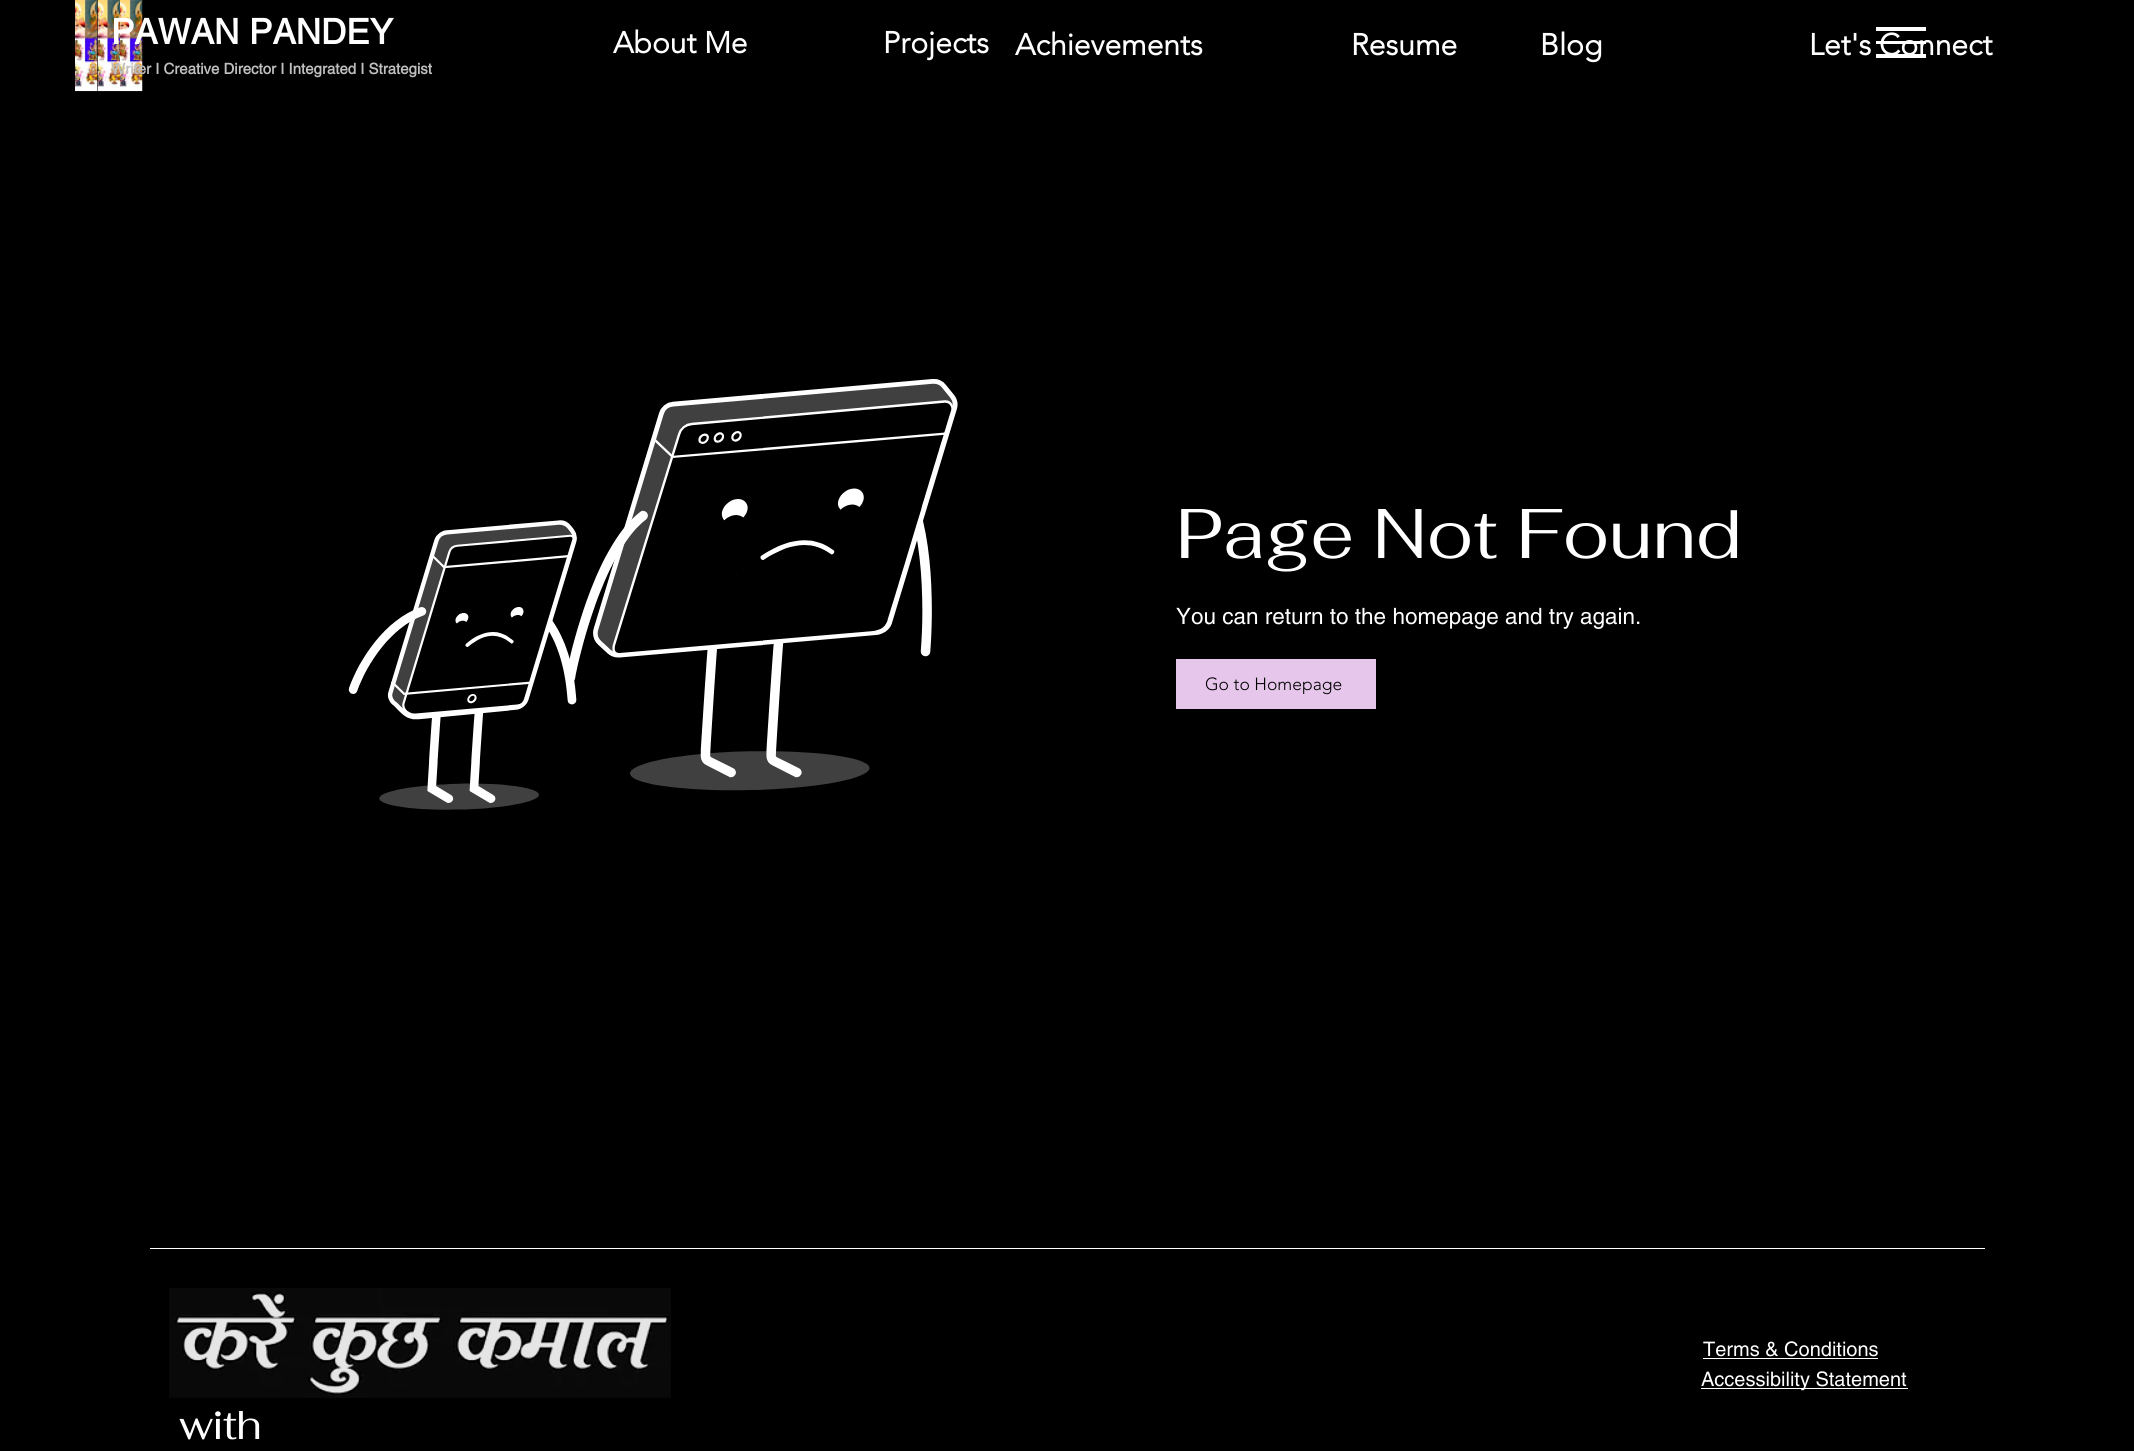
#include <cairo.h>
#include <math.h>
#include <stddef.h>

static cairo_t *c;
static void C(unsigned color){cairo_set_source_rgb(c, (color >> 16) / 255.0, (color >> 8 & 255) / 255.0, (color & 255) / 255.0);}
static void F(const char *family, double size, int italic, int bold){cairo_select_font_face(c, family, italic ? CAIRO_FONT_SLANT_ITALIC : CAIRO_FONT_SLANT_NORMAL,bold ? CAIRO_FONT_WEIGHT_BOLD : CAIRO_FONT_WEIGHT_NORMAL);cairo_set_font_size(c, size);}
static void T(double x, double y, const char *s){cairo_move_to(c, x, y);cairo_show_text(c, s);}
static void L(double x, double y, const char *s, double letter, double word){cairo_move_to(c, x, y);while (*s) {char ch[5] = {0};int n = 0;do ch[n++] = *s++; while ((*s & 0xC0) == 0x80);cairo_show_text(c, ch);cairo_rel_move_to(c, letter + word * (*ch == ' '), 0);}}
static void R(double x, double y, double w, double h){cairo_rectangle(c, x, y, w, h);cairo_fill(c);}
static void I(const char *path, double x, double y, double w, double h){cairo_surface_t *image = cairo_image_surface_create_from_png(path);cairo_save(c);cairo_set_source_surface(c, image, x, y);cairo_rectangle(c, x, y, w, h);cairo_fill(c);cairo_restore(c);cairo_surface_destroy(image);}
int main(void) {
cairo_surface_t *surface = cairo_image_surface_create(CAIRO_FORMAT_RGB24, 2134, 1451);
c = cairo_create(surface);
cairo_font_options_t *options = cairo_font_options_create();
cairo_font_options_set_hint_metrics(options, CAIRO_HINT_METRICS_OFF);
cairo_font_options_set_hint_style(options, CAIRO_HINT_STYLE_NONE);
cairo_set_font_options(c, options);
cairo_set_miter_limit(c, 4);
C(0x000000);
cairo_paint(c);
I("1.png",75,0,23,92);
I("2.png",97,0,23,92);
I("1.png",120,0,23,92);
F("helvetica",35,0,1);
C(0xffffff);
T(111,44,"PAWAN PANDEY");
F("helvetica",15,0,1);
C(0xbfbfbf);
T(111,74,"Writer I Creative Director I Integrated I Strategist");
F("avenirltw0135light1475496",30,0,1);
C(0xffffff);
T(613,53,"About Me");
T(883,53,"Projects");
T(1015,55,"Achievements");
T(1351,55,"Resume");
T(1540,55,"Blog");
T(1809,55,"Let's Connect");
R(1876,54,50,4);
R(1876,27,50,4);
R(1876,41,50,3);
I("3.png",348,379,610,431);
F("Fahkwang",70,0,0);
T(1176,558,"Page Not Found");
F("helvetica",22.5,0,0);
T(1176,624,"You can return to the homepage and try again.");
C(0xe6c7eb);
R(1176,659,200,50);
F("avenirltw0135light1475496 Light",17.5,0,0);
C(0x000000);
T(1205,690,"Go to Homepage");
C(0xffffff);
R(150,1248,1835,1);
F("helvetica",20,0,0);
T(1703,1356,"Terms & Conditions");
R(1703,1358,175,1);
R(1701,1388,207,1);
T(1701,1386,"Accessibility Statement");
I("4.png",169,1288,502,110);
F("Fahkwang",41,0,0);
L(179,1439,"with",-1,0);
cairo_surface_write_to_png(surface, "o.png");
cairo_font_options_destroy(options);
cairo_destroy(c);
cairo_surface_destroy(surface);
return 0;
}
